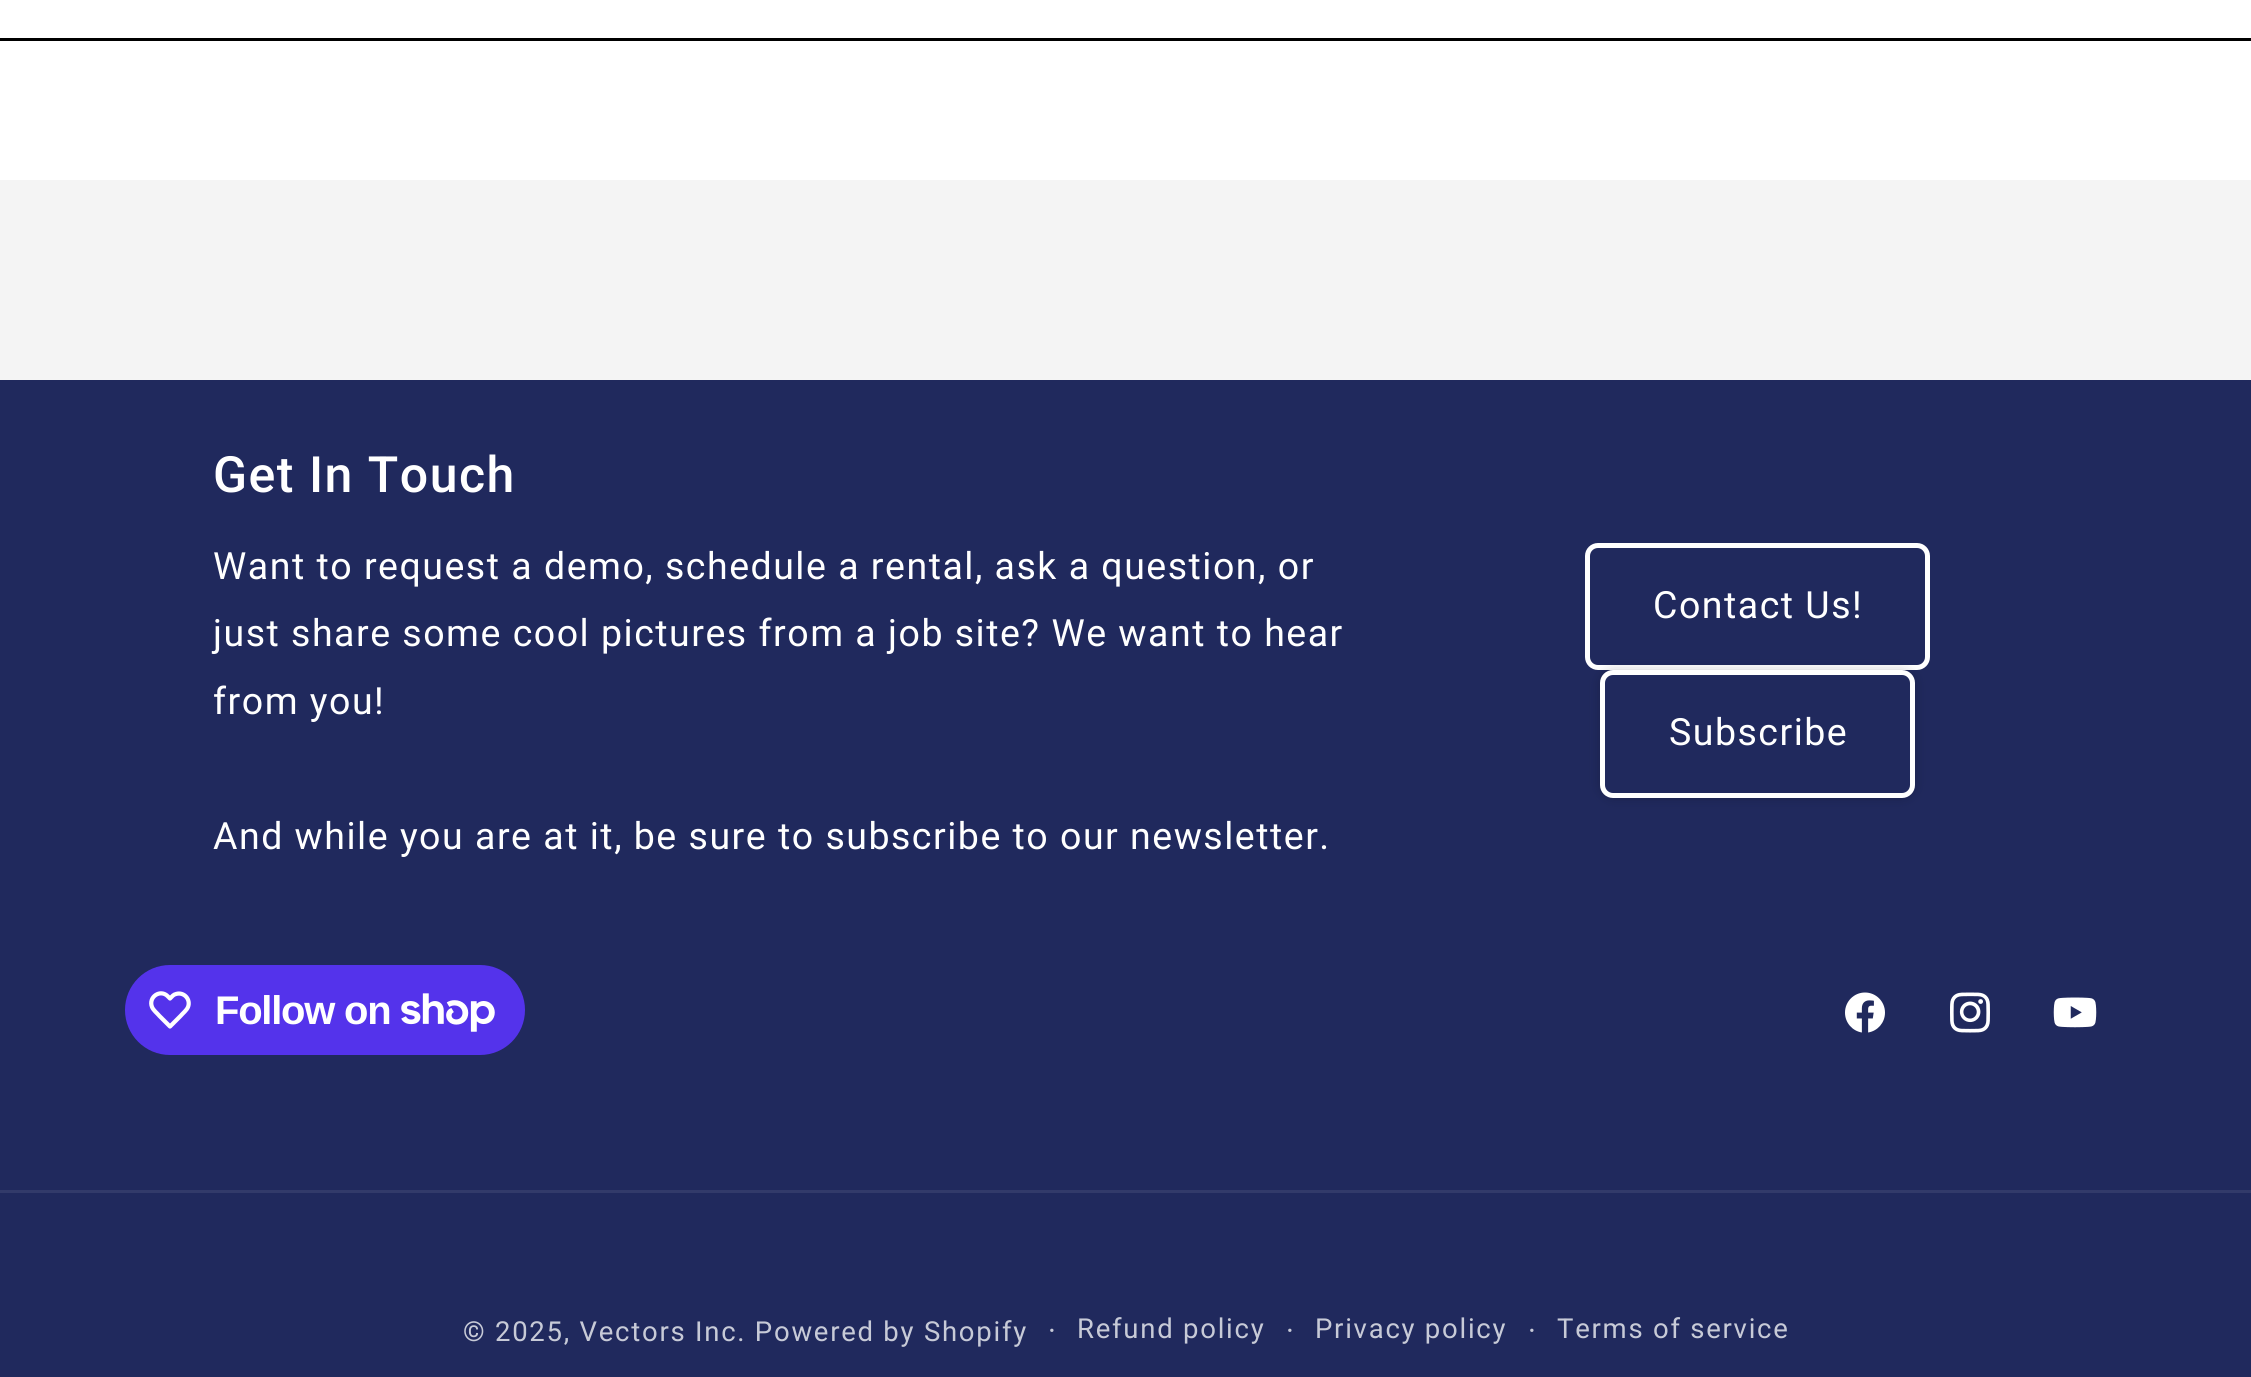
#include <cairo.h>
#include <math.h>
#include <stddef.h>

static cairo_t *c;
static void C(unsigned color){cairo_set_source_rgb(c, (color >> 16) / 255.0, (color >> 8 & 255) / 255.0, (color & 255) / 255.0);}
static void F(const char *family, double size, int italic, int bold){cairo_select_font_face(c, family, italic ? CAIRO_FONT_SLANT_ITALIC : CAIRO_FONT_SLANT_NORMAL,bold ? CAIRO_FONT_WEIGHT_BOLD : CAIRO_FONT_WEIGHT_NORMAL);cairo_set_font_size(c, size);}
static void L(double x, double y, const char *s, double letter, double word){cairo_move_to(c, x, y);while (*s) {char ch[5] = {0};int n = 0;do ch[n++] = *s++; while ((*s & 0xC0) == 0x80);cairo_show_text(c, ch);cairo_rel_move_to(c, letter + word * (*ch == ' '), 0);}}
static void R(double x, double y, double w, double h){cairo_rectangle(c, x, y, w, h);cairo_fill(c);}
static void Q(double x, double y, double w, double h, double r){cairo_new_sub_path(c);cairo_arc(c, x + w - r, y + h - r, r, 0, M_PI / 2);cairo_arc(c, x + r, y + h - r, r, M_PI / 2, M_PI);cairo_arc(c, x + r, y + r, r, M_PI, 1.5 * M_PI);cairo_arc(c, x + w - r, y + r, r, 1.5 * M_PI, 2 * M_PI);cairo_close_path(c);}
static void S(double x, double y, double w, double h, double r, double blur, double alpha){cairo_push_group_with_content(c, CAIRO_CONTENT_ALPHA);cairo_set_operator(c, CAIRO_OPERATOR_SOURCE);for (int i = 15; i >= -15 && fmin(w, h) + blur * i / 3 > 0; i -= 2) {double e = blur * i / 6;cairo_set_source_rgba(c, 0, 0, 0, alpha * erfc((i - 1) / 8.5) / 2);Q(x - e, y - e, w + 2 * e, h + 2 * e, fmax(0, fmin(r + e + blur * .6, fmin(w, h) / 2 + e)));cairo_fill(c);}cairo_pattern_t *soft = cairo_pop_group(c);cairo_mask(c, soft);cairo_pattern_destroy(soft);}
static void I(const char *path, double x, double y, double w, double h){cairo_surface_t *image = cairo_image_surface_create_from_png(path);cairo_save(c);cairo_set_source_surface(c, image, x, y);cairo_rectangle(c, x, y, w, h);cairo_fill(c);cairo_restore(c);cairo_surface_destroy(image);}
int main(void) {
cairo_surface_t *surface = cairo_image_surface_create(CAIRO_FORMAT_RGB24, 2251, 1377);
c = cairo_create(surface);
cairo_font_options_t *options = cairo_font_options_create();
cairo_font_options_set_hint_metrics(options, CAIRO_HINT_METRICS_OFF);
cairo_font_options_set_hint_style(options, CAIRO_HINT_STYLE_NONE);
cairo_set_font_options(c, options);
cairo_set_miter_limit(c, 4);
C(0xf4f4f4);
cairo_paint(c);
C(0xffffff);
R(0,0,2251,180);
C(0x000000);
R(0,38,2251,3);
C(0x20295d);
R(0,380,2251,997);
F("Roboto Medium",50,0,0);
C(0xffffff);
L(213,492,"Get In Touch",1.5,0);
F("Roboto",37.5,0,0);
L(213,579,"Want to request a demo, schedule a rental, ask a question, or",1.5,0);
L(213,646,"just share some cool pictures from a job site? We want to hear",1.5,0);
L(213,714,"from you!",1.5,0);
L(213,849,"And while you are at it, be sure to subscribe to our newsletter.",1.5,0);
Q(1587.5,545.5,340,122,10.5);
cairo_set_line_width(c,5);
cairo_stroke(c);
L(1653,618,"Contact Us!",1.5,0);
C(0x000000);
S(1600,670,315,128,13,6,.2);
C(0x20295d);
Q(1602.5,672.5,310,123,10.5);
cairo_fill_preserve(c);
C(0xffffff);
cairo_stroke(c);
L(1669,745,"Subscribe",1.5,0);
C(0x5433eb);
Q(125,965,400,90,45);
cairo_fill(c);
cairo_new_path(c);
cairo_move_to(c,168,996.5);
cairo_line_to(c,170,998.5);
cairo_curve_to(c,172,996.5,173.5,994.5,176,994);
cairo_curve_to(c,184,991.5,191,999.5,188,1007);
cairo_curve_to(c,186.5,1010.5,183,1013,180.5,1016);
cairo_line_to(c,170,1026.5);
cairo_line_to(c,159.5,1016);
cairo_curve_to(c,157,1013,153.5,1010.5,152,1007);
cairo_curve_to(c,148,997,160.5,988.5,168,996.5);
cairo_close_path(c);
C(0xffffff);
cairo_set_line_width(c,4.2);
cairo_set_line_join(c,CAIRO_LINE_JOIN_ROUND);
cairo_stroke(c);
F("Liberation Sans",40,0,1);
L(215,1024,"Follow on",-1.25,0);
I("1.png",401,993,94,39);
I("2.png",1845,992,40,41);
I("3.png",1950,992,40,41);
I("4.png",2053,997,44,31);
C(0x323a6a);
R(0,1190,2251,3);
F("Roboto",27.5,0,0);
C(0xc7cad7);
L(463,1341,"© 2025, Vectors Inc. Powered by Shopify",1.75,0);
F("Roboto",30,0,0);
L(1048,1341,"·",1.75,0);
F("Roboto",27.5,0,0);
L(1077,1338,"Refund policy",1.75,0);
F("Roboto",30,0,0);
L(1286,1341,"·",1.75,0);
F("Roboto",27.5,0,0);
L(1315,1338,"Privacy policy",1.75,0);
F("Roboto",30,0,0);
L(1528,1341,"·",1.75,0);
F("Roboto",27.5,0,0);
L(1557,1338,"Terms of service",1.75,0);
cairo_surface_write_to_png(surface, "o.png");
cairo_font_options_destroy(options);
cairo_destroy(c);
cairo_surface_destroy(surface);
return 0;
}
